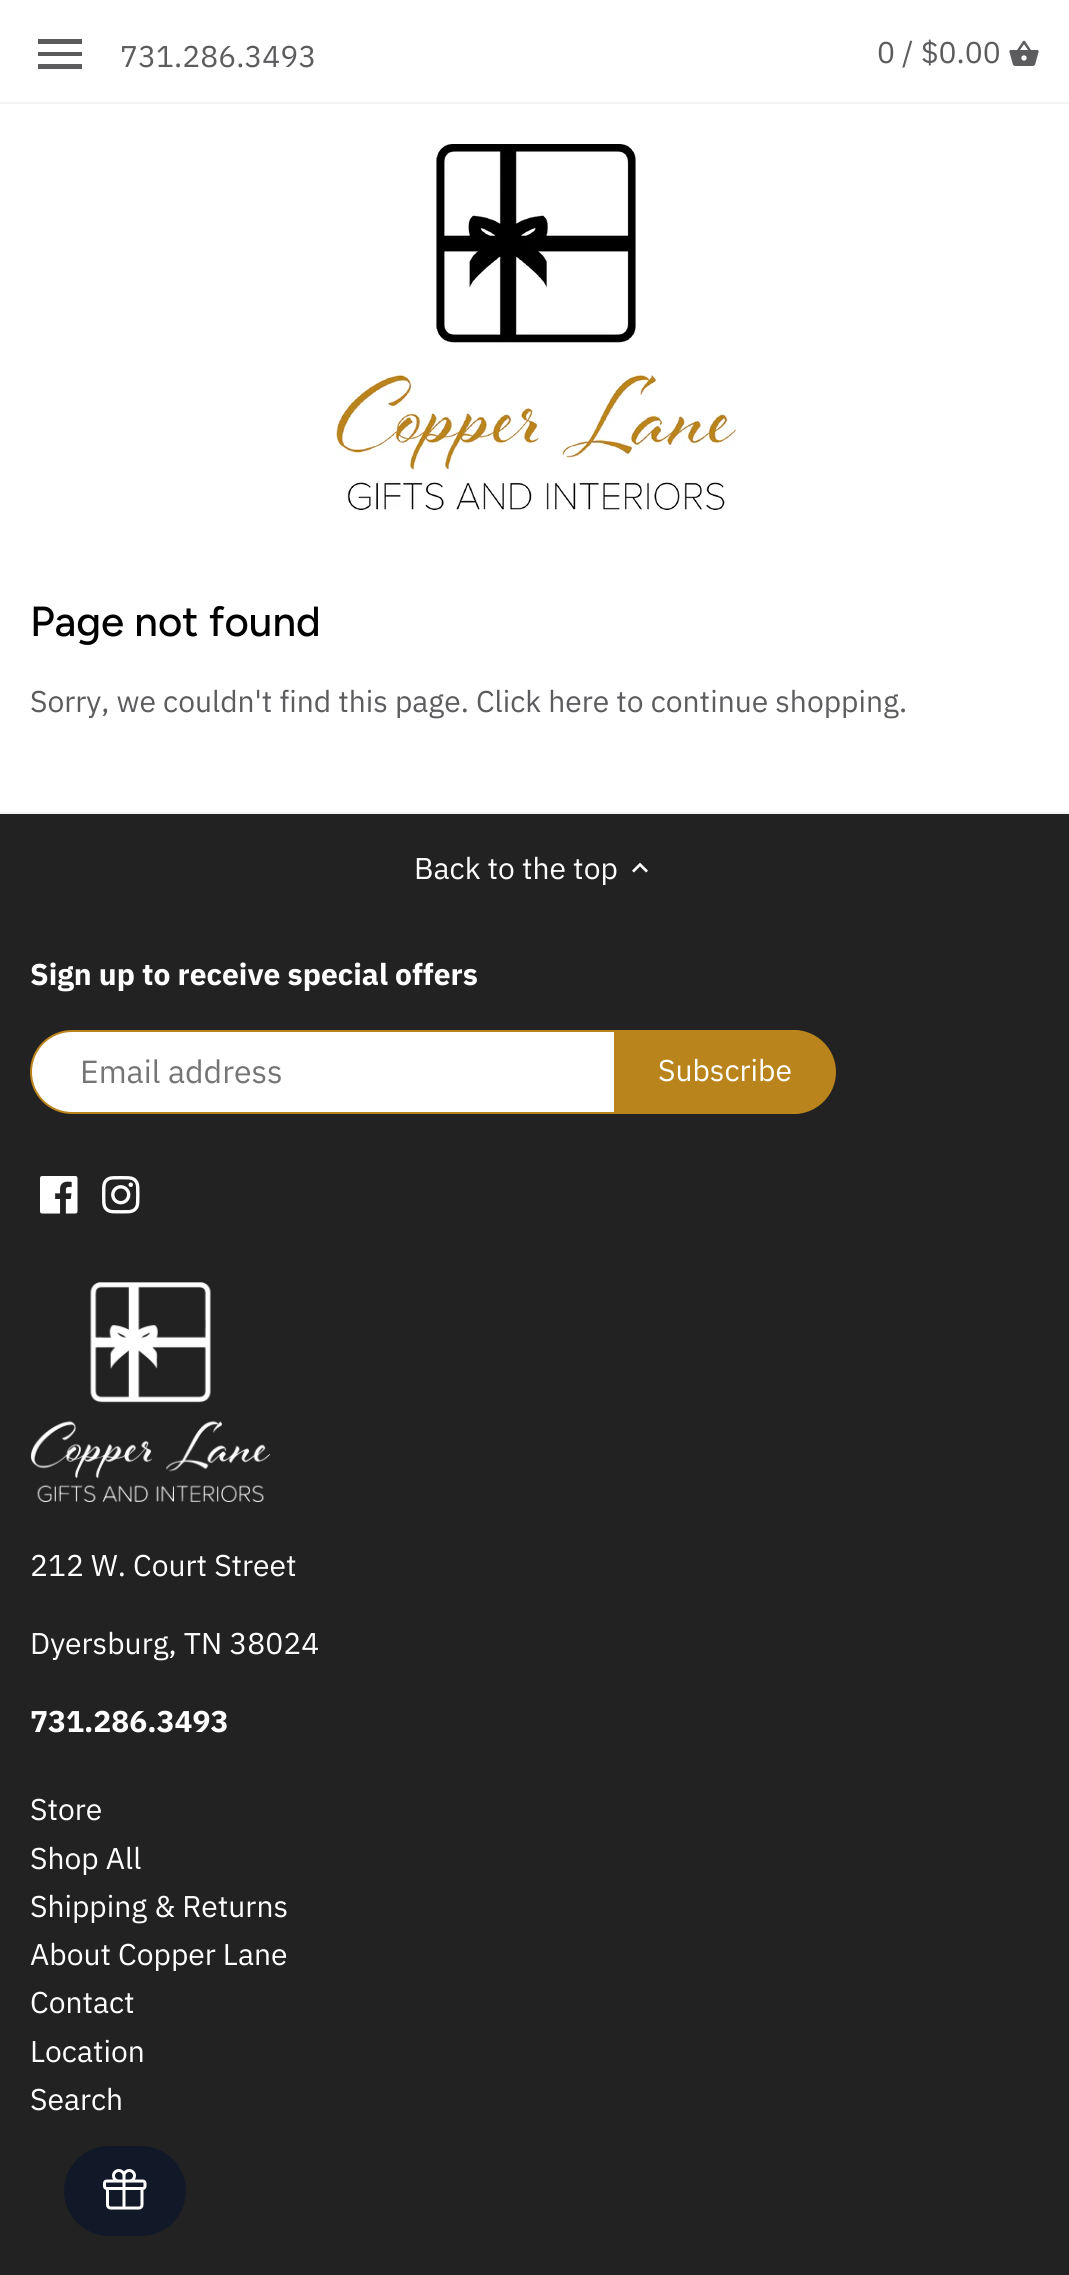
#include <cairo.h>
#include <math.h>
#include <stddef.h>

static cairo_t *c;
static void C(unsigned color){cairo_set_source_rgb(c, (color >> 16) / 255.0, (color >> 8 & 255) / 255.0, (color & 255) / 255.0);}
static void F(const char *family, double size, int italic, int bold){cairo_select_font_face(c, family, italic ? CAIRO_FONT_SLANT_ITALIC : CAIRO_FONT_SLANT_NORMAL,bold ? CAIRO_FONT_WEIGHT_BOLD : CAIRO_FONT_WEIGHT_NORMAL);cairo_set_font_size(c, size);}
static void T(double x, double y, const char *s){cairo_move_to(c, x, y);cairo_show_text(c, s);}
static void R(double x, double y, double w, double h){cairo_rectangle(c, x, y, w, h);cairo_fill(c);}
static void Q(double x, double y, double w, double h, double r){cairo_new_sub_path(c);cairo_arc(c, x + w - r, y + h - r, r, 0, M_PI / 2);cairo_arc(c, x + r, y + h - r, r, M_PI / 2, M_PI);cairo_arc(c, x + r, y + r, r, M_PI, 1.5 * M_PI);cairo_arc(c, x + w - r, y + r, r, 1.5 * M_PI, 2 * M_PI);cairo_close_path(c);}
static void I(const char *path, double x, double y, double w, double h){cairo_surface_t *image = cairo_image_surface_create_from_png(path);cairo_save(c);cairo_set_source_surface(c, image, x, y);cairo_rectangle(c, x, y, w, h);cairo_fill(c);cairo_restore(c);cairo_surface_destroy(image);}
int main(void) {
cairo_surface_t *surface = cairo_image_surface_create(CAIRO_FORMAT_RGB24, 1069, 2275);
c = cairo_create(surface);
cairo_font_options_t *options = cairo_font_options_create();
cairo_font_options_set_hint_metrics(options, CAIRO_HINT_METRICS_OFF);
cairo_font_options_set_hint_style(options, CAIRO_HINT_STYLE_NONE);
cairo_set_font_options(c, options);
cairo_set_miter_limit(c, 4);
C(0x222222);
cairo_paint(c);
C(0xffffff);
R(0,0,1069,812);
C(0xf2f3f3);
R(0,102,1069,2);
C(0x5c5c5f);
cairo_new_path(c);
cairo_move_to(c,38,69);
cairo_line_to(c,82,69);
cairo_line_to(c,82,64);
cairo_line_to(c,38,64);
cairo_close_path(c);
cairo_move_to(c,38,56);
cairo_line_to(c,82,56);
cairo_line_to(c,82,52);
cairo_line_to(c,38,52);
cairo_close_path(c);
cairo_move_to(c,38,39);
cairo_line_to(c,38,44);
cairo_line_to(c,82,44);
cairo_line_to(c,82,39);
cairo_close_path(c);
cairo_fill(c);
F("IBM Plex Sans",30,0,0);
T(120,67,"731.286.3493");
T(877,63,"0 / $0.00");
I("1.png",1009,40,30,26);
I("2.png",336,144,400,366);
F("Figtree Medium",42,0,0);
C(0x000000);
T(30,636,"Page not found");
F("IBM Plex Sans",30,0,0);
C(0x5c5c5f);
T(30,712,"Sorry, we couldn't find this page. Click here to continue shopping.");
C(0xf2f3f3);
R(0,812,1069,2);
C(0xffffff);
T(414,879,"Back to the top");
I("3.png",632,862,16,11);
F("IBM Plex Sans",30,0,1);
T(30,985,"Sign up to receive special offers");
Q(31,1031,802,82,41);
cairo_fill_preserve(c);
C(0xba841d);
cairo_stroke(c);
F("IBM Plex Sans",32,0,0);
C(0x757575);
T(80,1083,"Email address");
C(0xba841d);
cairo_new_path(c);
cairo_move_to(c,615,1031);
cairo_line_to(c,794,1031);
cairo_curve_to(c,816.5,1031,835,1049.5,835,1072);
cairo_curve_to(c,835,1094.5,816.5,1113,794,1113);
cairo_line_to(c,615,1113);
cairo_close_path(c);
cairo_fill_preserve(c);
cairo_stroke(c);
F("IBM Plex Sans",30,0,0);
C(0xffffff);
T(658,1081,"Subscribe");
I("4.png",40,1176,38,38);
I("5.png",102,1176,38,38);
I("6.png",30,1282,240,220);
T(30,1576,"212 W. Court Street");
T(30,1654,"Dyersburg, TN 38024");
F("IBM Plex Sans",30,0,1);
T(30,1732,"731.286.3493");
F("IBM Plex Sans",30,0,0);
T(30,1820,"Store");
T(30,1869,"Shop All");
T(30,1917,"Shipping & Returns");
T(30,1965,"About Copper Lane");
T(30,2013,"Contact");
T(30,2062,"Location");
T(30,2110,"Search");
C(0x111827);
Q(64,2146,122,90,45);
cairo_fill(c);
I("7.png",103,2169,44,41);
cairo_surface_write_to_png(surface, "o.png");
cairo_font_options_destroy(options);
cairo_destroy(c);
cairo_surface_destroy(surface);
return 0;
}
